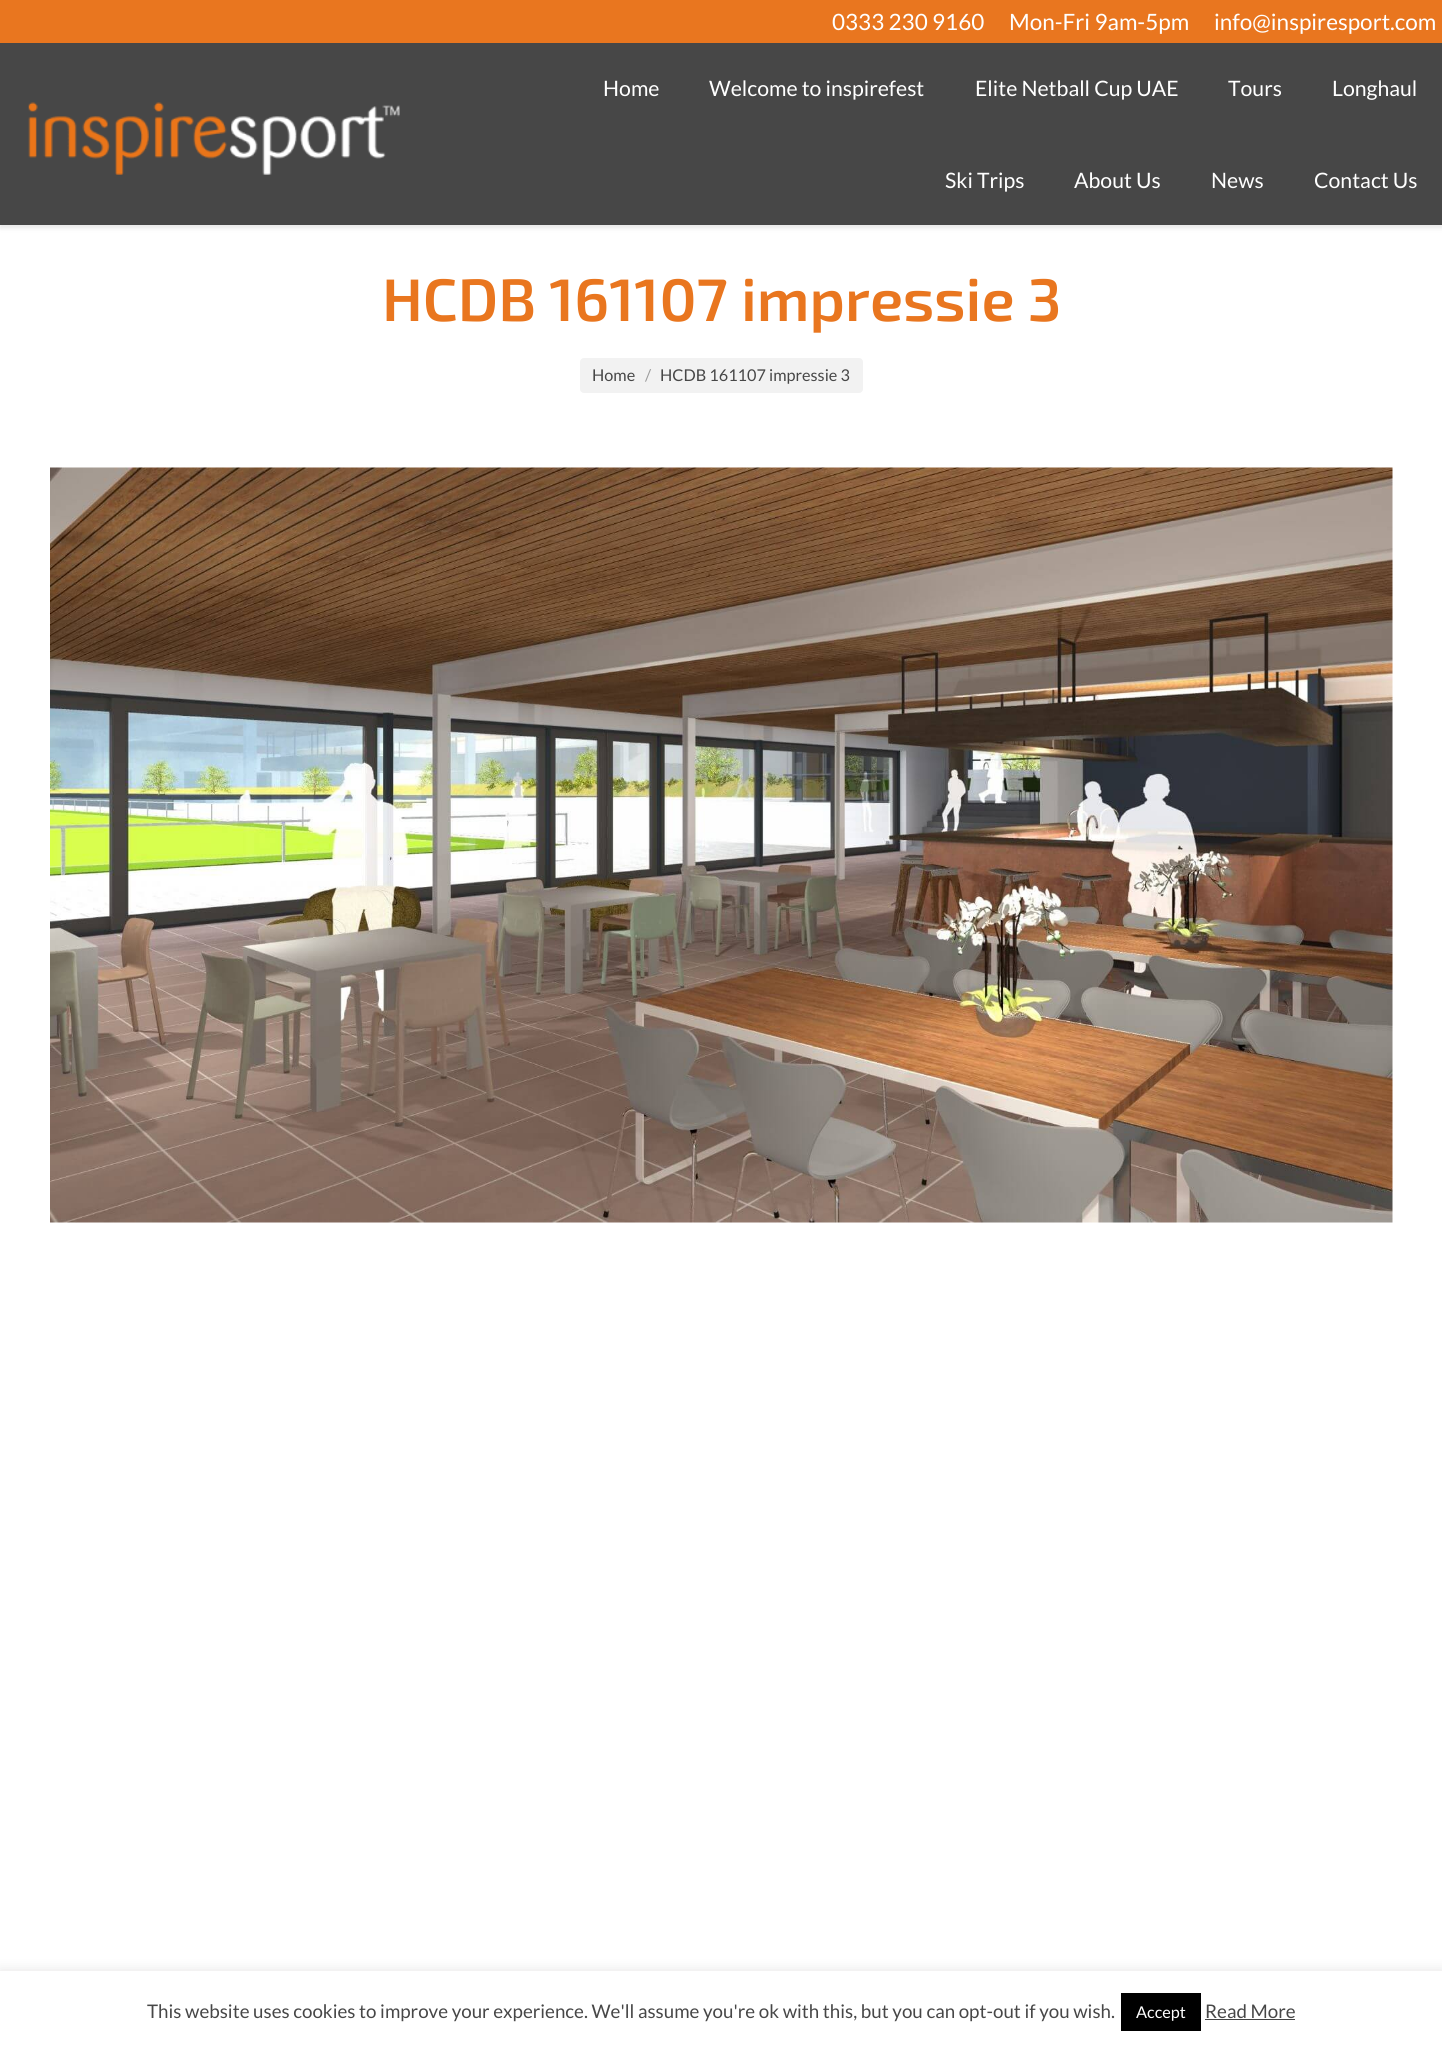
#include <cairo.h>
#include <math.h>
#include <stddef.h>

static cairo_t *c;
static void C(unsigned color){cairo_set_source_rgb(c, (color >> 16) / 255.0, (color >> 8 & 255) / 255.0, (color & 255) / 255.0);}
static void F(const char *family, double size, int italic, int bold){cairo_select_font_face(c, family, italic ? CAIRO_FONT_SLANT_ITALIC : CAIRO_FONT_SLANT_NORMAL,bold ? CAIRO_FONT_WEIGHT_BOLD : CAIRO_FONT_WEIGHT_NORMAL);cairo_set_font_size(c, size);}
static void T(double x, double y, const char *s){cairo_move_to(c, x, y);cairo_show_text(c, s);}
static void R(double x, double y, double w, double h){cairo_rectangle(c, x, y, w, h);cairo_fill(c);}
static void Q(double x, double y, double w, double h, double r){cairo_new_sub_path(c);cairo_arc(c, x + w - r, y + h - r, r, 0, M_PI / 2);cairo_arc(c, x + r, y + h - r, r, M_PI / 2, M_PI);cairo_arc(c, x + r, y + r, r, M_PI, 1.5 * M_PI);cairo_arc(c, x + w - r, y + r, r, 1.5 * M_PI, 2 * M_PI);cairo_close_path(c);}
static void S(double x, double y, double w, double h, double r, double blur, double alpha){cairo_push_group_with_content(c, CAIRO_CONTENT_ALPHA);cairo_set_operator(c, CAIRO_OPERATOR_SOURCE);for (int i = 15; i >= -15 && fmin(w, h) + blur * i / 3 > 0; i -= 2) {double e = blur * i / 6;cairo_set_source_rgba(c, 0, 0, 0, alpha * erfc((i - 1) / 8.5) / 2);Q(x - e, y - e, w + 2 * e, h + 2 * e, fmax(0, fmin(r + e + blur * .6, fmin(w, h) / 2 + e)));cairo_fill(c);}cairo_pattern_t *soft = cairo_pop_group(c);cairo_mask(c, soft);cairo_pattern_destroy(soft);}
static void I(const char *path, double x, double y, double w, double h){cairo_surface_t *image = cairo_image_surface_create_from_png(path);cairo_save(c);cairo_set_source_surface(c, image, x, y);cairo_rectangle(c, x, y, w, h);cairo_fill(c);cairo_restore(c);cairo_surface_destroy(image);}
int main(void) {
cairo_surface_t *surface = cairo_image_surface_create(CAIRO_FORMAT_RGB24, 1442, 2046);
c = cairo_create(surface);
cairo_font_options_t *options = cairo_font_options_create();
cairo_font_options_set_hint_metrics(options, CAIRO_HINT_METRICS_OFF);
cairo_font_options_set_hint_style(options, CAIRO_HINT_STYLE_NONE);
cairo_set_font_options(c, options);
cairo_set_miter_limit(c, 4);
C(0xffffff);
cairo_paint(c);
C(0x000000);
S(0,0,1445,228,0,2.5,.1);
C(0x474747);
R(0,43,1442,182);
C(0xe9761f);
R(0,0,1442,43);
F("Lato",22.5,0,0);
C(0xffffff);
T(832,30,"0333 230 9160");
T(1009,30,"Mon-Fri 9am-5pm");
T(1214,30,"info@inspiresport.com");
I("1.png",28,102,372,73);
F("Lato",21.25,0,0);
T(603,96,"Home");
T(709,96,"Welcome to inspirefest");
T(975,96,"Elite Netball Cup UAE");
T(1228,96,"Tours");
T(1332,96,"Longhaul");
T(945,188,"Ski Trips");
T(1074,188,"About Us");
T(1211,188,"News");
T(1314,188,"Contact Us");
F("Exo 2 SemiBold",60,0,0);
C(0xe9761f);
T(382,321,"HCDB 161107 impressie 3");
C(0xf2f2f2);
Q(580,358,283,35,4);
cairo_fill(c);
F("Lato",16.25,0,0);
C(0x474747);
T(592,381,"Home");
C(0x9d9d9d);
T(645,381,"/");
C(0x474747);
T(660,381,"HCDB 161107 impressie 3");
I("2.png",50,467,1343,756);
C(0xacabab);
S(0,1970,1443,75,0,6,.3);
C(0xffffff);
R(0,1971,1442,75);
F("Lato",18.75,0,0);
C(0x474747);
T(147,2018,"This website uses cookies to improve your experience. We'll assume you're ok with this, but you can opt-out if you wish.");
C(0x000000);
R(1121,1993,80,38);
F("Lato",16.25,0,0);
C(0xffffff);
T(1136,2018,"Accept");
F("Lato",18.75,0,0);
C(0x474747);
T(1205,2018,"Read More");
C(0x444444);
R(1205,2019,90,1);
cairo_surface_write_to_png(surface, "o.png");
cairo_font_options_destroy(options);
cairo_destroy(c);
cairo_surface_destroy(surface);
return 0;
}
